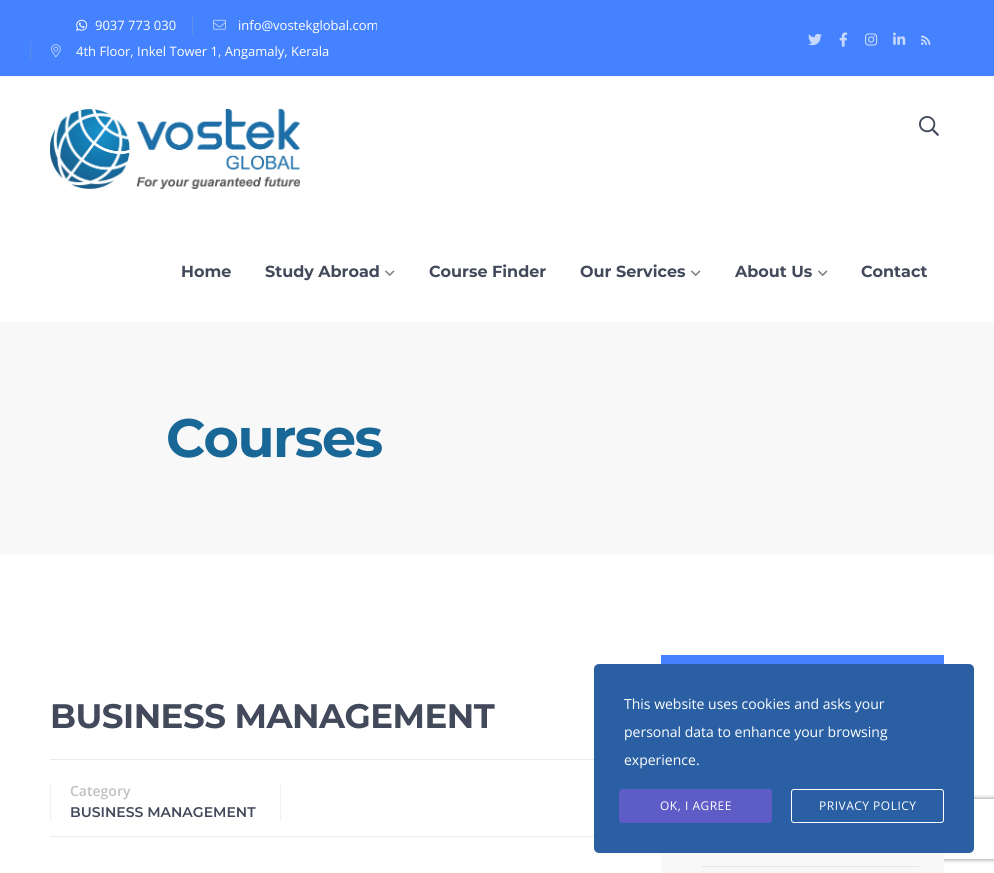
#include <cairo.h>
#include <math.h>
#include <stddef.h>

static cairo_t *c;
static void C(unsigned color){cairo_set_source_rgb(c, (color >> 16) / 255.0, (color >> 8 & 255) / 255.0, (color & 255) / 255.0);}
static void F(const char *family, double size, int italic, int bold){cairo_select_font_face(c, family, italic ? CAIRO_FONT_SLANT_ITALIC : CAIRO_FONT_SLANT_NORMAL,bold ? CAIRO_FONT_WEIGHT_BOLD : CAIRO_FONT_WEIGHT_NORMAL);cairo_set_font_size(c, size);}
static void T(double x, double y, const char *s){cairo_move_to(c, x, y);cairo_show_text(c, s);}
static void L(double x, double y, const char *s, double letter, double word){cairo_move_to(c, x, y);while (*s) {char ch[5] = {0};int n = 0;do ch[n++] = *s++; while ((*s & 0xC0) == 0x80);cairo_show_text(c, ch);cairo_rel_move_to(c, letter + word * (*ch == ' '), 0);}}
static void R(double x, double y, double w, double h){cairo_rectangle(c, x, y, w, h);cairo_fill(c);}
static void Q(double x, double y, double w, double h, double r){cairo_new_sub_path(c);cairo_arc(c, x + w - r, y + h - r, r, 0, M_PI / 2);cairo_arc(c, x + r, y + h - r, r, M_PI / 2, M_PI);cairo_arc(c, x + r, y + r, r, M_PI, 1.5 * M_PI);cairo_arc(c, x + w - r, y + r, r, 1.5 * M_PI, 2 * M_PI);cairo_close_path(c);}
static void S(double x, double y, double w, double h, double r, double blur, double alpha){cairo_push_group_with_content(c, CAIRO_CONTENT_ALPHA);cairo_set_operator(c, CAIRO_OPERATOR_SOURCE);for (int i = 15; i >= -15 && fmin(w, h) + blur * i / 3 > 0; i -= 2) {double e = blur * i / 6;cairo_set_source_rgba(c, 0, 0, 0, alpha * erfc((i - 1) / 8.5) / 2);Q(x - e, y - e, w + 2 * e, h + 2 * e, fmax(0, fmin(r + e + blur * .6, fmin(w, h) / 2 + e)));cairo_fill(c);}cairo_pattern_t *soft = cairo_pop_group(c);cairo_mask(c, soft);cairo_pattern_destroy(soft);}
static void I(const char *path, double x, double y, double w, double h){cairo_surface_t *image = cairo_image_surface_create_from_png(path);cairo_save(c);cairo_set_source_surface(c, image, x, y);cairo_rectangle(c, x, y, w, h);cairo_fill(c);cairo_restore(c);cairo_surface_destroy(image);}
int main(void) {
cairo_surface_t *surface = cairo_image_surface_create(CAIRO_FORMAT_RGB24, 994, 873);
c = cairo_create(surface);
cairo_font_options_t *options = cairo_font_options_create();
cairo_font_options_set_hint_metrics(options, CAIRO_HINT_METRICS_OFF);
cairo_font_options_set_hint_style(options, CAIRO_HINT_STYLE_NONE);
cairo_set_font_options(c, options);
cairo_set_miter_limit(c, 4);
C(0xffffff);
cairo_paint(c);
C(0x4582ff);
R(0,0,994,76);
I("1.png",76,19,12,12);
F("Open Sans",13,0,0);
C(0xffffff);
T(95,30,"9037 773 030");
C(0x618be6);
R(192,15,1,20);
I("2.png",213,19,13,11);
C(0xffffff);
T(238,30,"info@vostekglobal.com");
C(0x618be6);
R(30,41,1,20);
I("3.png",51,44,10,14);
C(0xffffff);
T(76,56,"4th Floor, Inkel Tower 1, Angamaly, Kerala");
I("4.png",808,33,14,13);
I("5.png",839,32,9,15);
I("6.png",865,33,13,13);
I("7.png",893,32,13,13);
I("8.png",921,35,10,10);
I("9.png",50,109,250,80);
I("10.png",919,116,20,20);
F("Montserrat",16,0,1);
C(0x42495b);
T(181,277,"Home");
T(265,277,"Study Abroad");
I("11.png",385,270,10,6);
T(429,277,"Course Finder");
T(580,277,"Our Services");
I("11.png",691,270,10,6);
T(735,277,"About Us");
I("11.png",818,270,10,6);
T(861,277,"Contact");
C(0xf8f8f8);
R(0,322,994,233);
F("Montserrat",54,0,1);
C(0x186796);
L(166,457,"Courses",-1.5,0);
F("Montserrat",34,0,1);
C(0x42495b);
L(50,728,"BUSINESS MANAGEMENT",-.5,0);
C(0xeaeaea);
R(50,759,544,1);
R(50,836,544,1);
C(0xf0f0f0);
R(50,783,1,38);
F("Open Sans SemiBold",14,0,0);
C(0xc0c0c0);
T(70,796,"Category");
F("Montserrat SemiBold",14,0,0);
C(0x42495b);
T(70,817,"BUSINESS MANAGEMENT");
C(0xf0f0f0);
R(280,783,1,38);
cairo_save(c);
cairo_set_fill_rule(c,CAIRO_FILL_RULE_EVEN_ODD);
cairo_new_path(c);
cairo_move_to(c,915,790);
cairo_line_to(c,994,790);
cairo_line_to(c,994,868);
cairo_line_to(c,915,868);
cairo_close_path(c);
cairo_move_to(c,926,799);
cairo_line_to(c,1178,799);
cairo_curve_to(c,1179,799,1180,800,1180,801);
cairo_line_to(c,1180,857);
cairo_curve_to(c,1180,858,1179,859,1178,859);
cairo_line_to(c,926,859);
cairo_curve_to(c,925,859,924,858,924,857);
cairo_line_to(c,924,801);
cairo_curve_to(c,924,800,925,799,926,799);
cairo_close_path(c);
cairo_clip(c);
C(0x808080);
S(924,799,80,60,2,2.5,1);
cairo_restore(c);
C(0xf8f8f8);
R(661,853,283,20);
C(0x4582ff);
R(661,655,283,9);
C(0xe6e6e6);
R(702,866,217,1);
C(0x2a60a3);
Q(594,664,380,189,5);
cairo_fill(c);
F("Open Sans",14,0,0);
C(0xffffff);
T(624,709,"This website uses cookies and asks your");
T(624,737,"personal data to enhance your browsing");
T(624,765,"experience.");
C(0x5e5cc7);
Q(619.5,789.5,152,33,2.5);
cairo_fill_preserve(c);
cairo_set_line_width(c,1);
cairo_stroke(c);
F("Open Sans",12,0,0);
C(0xffffff);
L(660,810,"OK, I AGREE",.5,0);
Q(791.5,789.5,152,33,2.5);
cairo_stroke(c);
L(819,810,"PRIVACY POLICY",.5,0);
cairo_surface_write_to_png(surface, "o.png");
cairo_font_options_destroy(options);
cairo_destroy(c);
cairo_surface_destroy(surface);
return 0;
}
